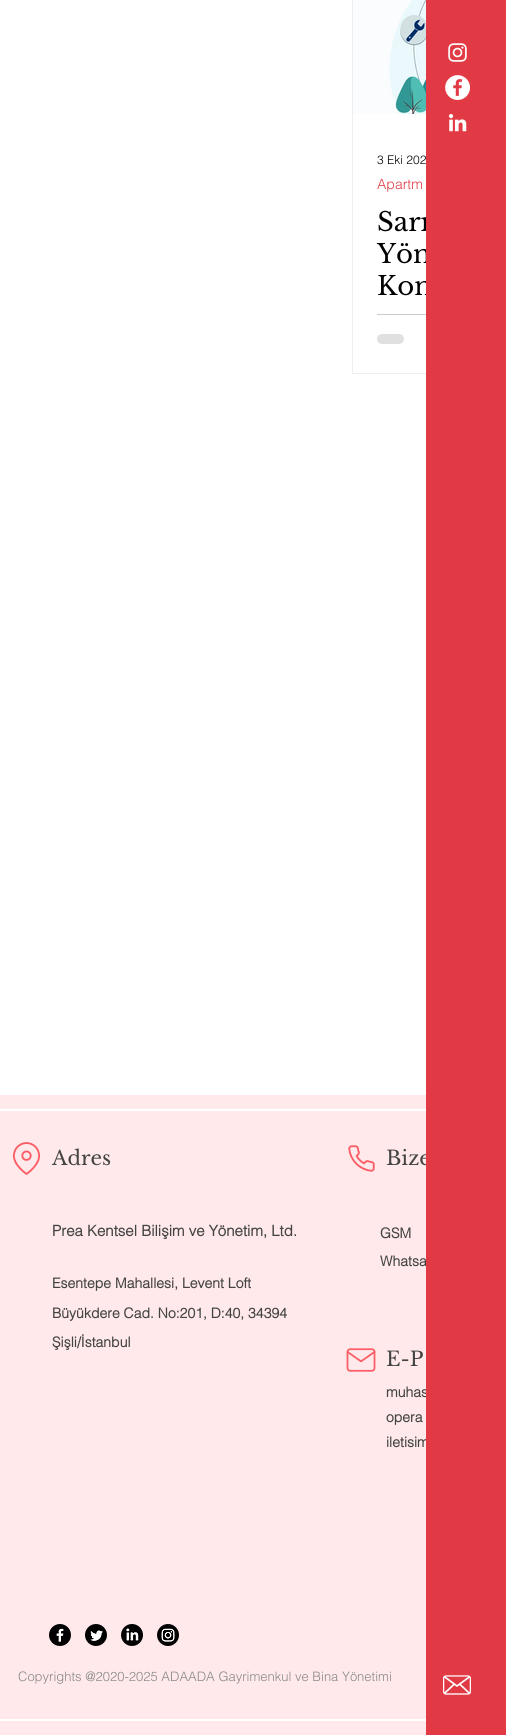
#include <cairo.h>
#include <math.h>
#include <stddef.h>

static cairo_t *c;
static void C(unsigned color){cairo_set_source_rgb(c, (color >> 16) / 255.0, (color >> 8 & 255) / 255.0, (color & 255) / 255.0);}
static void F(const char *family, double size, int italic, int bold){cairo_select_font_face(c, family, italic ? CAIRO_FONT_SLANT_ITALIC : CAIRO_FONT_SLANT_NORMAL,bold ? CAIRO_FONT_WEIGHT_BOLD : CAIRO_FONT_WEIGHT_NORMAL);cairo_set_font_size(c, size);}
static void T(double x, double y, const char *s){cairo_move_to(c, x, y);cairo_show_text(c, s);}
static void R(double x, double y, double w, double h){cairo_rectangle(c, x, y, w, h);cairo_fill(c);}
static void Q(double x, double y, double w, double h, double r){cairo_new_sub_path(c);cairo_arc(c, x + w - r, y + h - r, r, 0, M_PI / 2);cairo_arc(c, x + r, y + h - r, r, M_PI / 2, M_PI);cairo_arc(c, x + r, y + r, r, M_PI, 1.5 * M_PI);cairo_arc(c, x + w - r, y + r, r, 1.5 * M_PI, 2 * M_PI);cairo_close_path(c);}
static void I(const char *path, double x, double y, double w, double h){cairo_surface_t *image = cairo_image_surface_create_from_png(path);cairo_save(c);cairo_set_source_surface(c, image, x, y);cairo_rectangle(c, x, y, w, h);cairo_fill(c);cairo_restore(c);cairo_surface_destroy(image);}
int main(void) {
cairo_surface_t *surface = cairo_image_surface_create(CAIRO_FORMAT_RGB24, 506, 1735);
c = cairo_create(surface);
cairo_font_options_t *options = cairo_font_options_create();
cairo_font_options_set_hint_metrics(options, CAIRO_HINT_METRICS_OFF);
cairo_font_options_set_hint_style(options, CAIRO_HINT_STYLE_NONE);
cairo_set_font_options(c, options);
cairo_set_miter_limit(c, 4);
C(0xffffff);
cairo_paint(c);
cairo_rectangle(c,352.5,-.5,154,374);
C(0xeeeeee);
cairo_set_line_width(c,1);
cairo_stroke(c);
F("Libre Baskerville",26,0,0);
C(0x000000);
T(377,231,"Sarı");
T(377,263,"Yön");
T(377,295,"Kon");
C(0xffe9ea);
R(0,1095,426,640);
F("Libre Baskerville",20,0,0);
C(0x444444);
T(386,1165,"Bize");
F("helvetica",14,0,1);
T(380,1266,"Whatsa");
T(386,1397,"muhas");
T(386,1447,"iletisim");
C(0xe13a44);
R(426,0,80,1735);
I("1.png",448,43,19,19);
I("2.png",445,75,25,25);
I("3.png",448,113,19,19);
I("4.png",353,0,73,114);
F("helvetica Light",12,0,0);
C(0x000000);
T(377,164,"3 Eki 202");
F("helvetica Light",14,0,0);
C(0xe13a44);
T(377,189,"Apartm");
C(0xcccccc);
R(377,314,49,1);
C(0xe0e0e0);
Q(377,334,27,10,5);
cairo_fill(c);
C(0xffffff);
R(0,1109,426,2);
R(0,1719,426,2);
I("5.png",13,1142,27,33);
F("Libre Baskerville",20,0,0);
C(0x444444);
T(52,1165,"Adres");
I("6.png",348,1145,27,27);
F("helvetica",15,0,1);
T(52,1236,"Prea Kentsel Bilişim ve Yönetim, Ltd.");
F("helvetica",14,0,1);
T(380,1238,"GSM");
T(52,1288,"Esentepe Mahallesi, Levent Loft");
T(52,1318,"Büyükdere Cad. No:201, D:40, 34394");
T(52,1347,"Şişli/İstanbul");
I("7.png",346,1348,30,24);
F("Libre Baskerville",20,0,0);
T(386,1366,"E-P");
F("helvetica",14,0,1);
T(386,1422,"opera");
I("8.png",49,1624,22,22);
I("9.png",85,1624,22,22);
I("10.png",121,1624,22,22);
I("11.png",157,1624,22,22);
F("helvetica Light",13,0,0);
C(0x888888);
T(18,1681,"Copyrights @2020-2025 ADAADA Gayrimenkul ve Bina Yönetimi");
I("12.png",443,1675,28,20);
cairo_surface_write_to_png(surface, "o.png");
cairo_font_options_destroy(options);
cairo_destroy(c);
cairo_surface_destroy(surface);
return 0;
}
